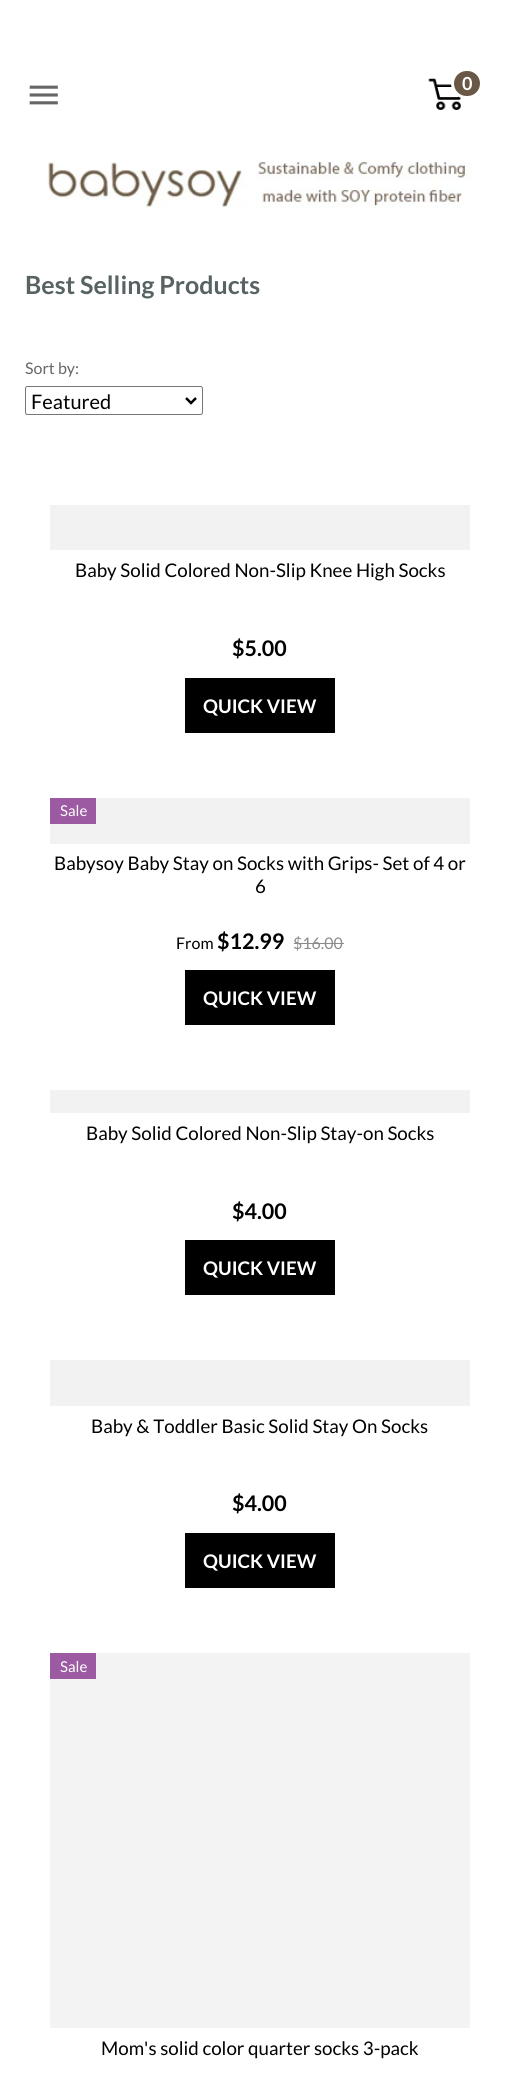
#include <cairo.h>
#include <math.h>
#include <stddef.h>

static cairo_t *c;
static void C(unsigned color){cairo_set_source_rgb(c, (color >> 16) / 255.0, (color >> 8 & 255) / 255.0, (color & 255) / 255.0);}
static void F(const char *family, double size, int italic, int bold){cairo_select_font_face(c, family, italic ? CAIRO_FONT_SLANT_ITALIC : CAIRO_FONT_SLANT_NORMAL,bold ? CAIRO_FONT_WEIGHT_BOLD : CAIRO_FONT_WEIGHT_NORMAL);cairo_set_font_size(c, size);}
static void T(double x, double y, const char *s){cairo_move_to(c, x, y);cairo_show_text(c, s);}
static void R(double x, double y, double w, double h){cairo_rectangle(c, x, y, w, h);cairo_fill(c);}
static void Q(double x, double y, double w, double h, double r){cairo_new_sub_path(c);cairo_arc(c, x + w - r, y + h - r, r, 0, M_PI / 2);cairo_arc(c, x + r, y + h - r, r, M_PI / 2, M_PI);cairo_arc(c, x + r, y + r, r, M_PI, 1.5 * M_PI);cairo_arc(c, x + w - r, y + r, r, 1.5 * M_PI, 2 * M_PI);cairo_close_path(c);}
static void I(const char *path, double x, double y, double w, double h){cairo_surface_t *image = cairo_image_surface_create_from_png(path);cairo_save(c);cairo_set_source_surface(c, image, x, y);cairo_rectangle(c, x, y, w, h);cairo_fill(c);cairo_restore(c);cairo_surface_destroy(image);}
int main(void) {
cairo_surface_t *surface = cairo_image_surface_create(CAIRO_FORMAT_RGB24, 519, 2093);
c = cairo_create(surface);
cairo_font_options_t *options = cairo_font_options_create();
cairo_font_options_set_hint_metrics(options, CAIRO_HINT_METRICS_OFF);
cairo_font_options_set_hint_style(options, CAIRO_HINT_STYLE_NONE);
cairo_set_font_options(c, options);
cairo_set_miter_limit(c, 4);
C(0xffffff);
cairo_paint(c);
I("1.png",29,85,29,20);
I("2.png",428,78,33,32);
C(0x695846);
Q(452.5,69.5,29,28,14);
cairo_fill_preserve(c);
C(0xffffff);
cairo_set_line_width(c,3);
cairo_stroke(c);
F("Lato",18,0,1);
T(462,90,"0");
I("3.png",47,161,424,47);
F("Lato",25,0,1);
C(0x586262);
T(25,294,"Best Selling Products");
F("Lato",16,0,0);
C(0x666666);
T(25,374,"Sort by:");
Q(25.5,386.5,177,28,2);
C(0x767676);
cairo_set_line_width(c,1);
cairo_stroke(c);
cairo_new_path(c);
cairo_move_to(c,186,398);
cairo_line_to(c,191,403);
cairo_line_to(c,196,398);
C(0x000000);
cairo_set_line_width(c,2.5);
cairo_stroke(c);
F("Lato",20,0,0);
T(31,409,"Featured");
C(0xf2f2f2);
R(50,505,420,45);
F("Lato",18.75,0,0);
C(0x000000);
T(75,577,"Baby Solid Colored Non-Slip Knee High Socks");
F("Lato",21.5,0,1);
T(232,656,"$5.00");
R(185,678,150,55);
F("Lato",18.75,0,1);
C(0xffffff);
T(203,713,"QUICK VIEW");
C(0xf2f2f2);
R(50,798,420,46);
C(0x9c5aa2);
R(50,798,46,26);
F("Lato",15,0,0);
C(0xffffff);
T(60,816,"Sale");
F("Lato",18.75,0,0);
C(0x000000);
T(54,870,"Babysoy Baby Stay on Socks with Grips- Set of 4 or");
T(255,893,"6");
F("Lato",16,0,0);
T(176,949,"From");
F("Lato",21.5,0,1);
T(217,949,"$12.99");
F("Lato",16,0,0);
C(0x8c8c8c);
T(293,949,"$16.00");
R(294,943,50,1);
C(0x000000);
R(185,970,150,55);
F("Lato",18.75,0,1);
C(0xffffff);
T(203,1005,"QUICK VIEW");
C(0xf2f2f2);
R(50,1090,420,23);
F("Lato",18.75,0,0);
C(0x000000);
T(86,1140,"Baby Solid Colored Non-Slip Stay-on Socks");
F("Lato",21.5,0,1);
T(232,1219,"$4.00");
R(185,1240,150,55);
F("Lato",18.75,0,1);
C(0xffffff);
T(203,1275,"QUICK VIEW");
C(0xf2f2f2);
R(50,1360,420,46);
F("Lato",18.75,0,0);
C(0x000000);
T(91,1433,"Baby & Toddler Basic Solid Stay On Socks");
F("Lato",21.5,0,1);
T(232,1511,"$4.00");
R(185,1533,150,55);
F("Lato",18.75,0,1);
C(0xffffff);
T(203,1568,"QUICK VIEW");
C(0xf3f3f3);
R(50,1653,420,375);
C(0x9c5aa2);
R(50,1653,46,26);
F("Lato",15,0,0);
C(0xffffff);
T(60,1672,"Sale");
F("Lato",18.75,0,0);
C(0x000000);
T(101,2055,"Mom's solid color quarter socks 3-pack");
cairo_surface_write_to_png(surface, "o.png");
cairo_font_options_destroy(options);
cairo_destroy(c);
cairo_surface_destroy(surface);
return 0;
}
